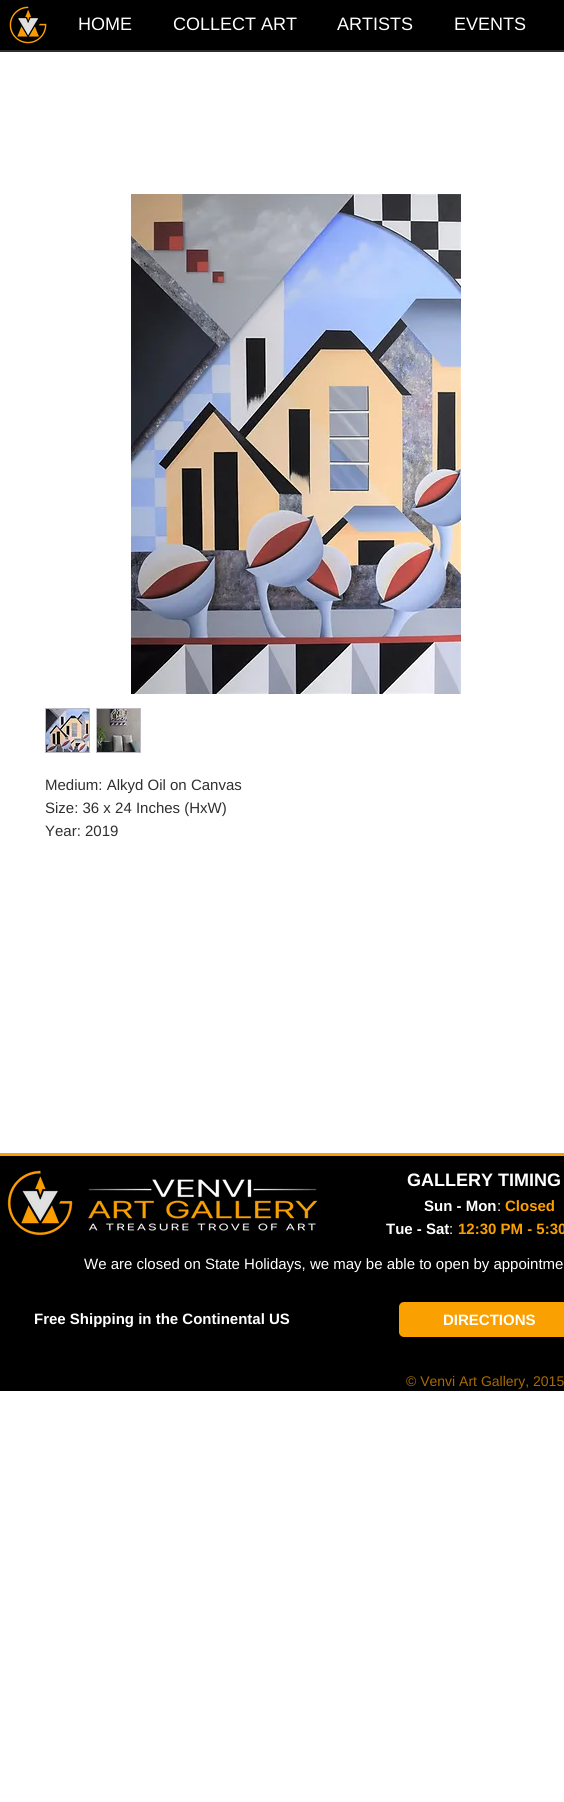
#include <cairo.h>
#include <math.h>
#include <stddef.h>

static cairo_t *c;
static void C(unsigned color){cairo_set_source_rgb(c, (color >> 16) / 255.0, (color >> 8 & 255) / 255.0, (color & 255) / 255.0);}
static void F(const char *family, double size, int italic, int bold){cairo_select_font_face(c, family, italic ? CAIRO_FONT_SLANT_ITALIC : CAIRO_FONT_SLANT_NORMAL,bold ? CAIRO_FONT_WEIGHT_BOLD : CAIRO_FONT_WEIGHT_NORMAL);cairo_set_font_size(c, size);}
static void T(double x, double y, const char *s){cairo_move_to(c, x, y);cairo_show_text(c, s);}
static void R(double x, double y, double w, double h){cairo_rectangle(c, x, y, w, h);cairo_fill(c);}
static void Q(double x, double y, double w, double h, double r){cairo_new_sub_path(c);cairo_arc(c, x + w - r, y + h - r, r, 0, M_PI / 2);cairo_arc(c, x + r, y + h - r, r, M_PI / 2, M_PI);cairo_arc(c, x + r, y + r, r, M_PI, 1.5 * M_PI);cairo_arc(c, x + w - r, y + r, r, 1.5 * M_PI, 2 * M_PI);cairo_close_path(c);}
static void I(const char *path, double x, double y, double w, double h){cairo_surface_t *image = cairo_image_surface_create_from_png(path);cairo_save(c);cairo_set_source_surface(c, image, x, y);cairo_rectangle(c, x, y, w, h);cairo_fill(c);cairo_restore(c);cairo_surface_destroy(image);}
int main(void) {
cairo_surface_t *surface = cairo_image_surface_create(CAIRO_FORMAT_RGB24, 564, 1802);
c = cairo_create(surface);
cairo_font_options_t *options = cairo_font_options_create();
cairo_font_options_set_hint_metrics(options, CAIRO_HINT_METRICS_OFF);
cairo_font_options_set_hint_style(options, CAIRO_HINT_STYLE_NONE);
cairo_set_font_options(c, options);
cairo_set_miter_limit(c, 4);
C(0xffffff);
cairo_paint(c);
C(0x000000);
R(0,0,564,50);
I("1.png",9,6,38,38);
F("Liberation Sans",18,0,0);
C(0xffffff);
T(78,30,"HOME");
T(173,30,"COLLECT ART");
T(337,30,"ARTISTS");
T(454,30,"EVENTS");
C(0x2f2e2e);
R(0,50,564,2);
I("2.png",131,194,330,500);
C(0xbebcc2);
R(45,708,45,45);
I("3.png",46,709,43,43);
R(96,708,45,45);
I("4.png",97,709,43,43);
F("Liberation Sans",15,0,0);
C(0x2f2f30);
T(45,790,"Medium: Alkyd Oil on Canvas");
T(45,813,"Size: 36 x 24 Inches (HxW)");
T(45,836,"Year: 2019");
C(0x000000);
R(0,1156,564,235);
C(0xfaa000);
R(0,1153,564,3);
I("5.png",7,1170,66,66);
I("6.png",88,1179,230,52);
F("Liberation Sans",18,0,1);
C(0xffffff);
T(407,1186,"GALLERY TIMING");
F("Liberation Sans",15,0,1);
T(424,1211,"Sun - Mon");
F("Liberation Sans",15,0,0);
T(497,1211,":");
F("Liberation Sans",15,0,1);
C(0xfaa000);
T(505,1211,"Closed");
C(0xffffff);
T(386,1234,"Tue - Sat");
F("Liberation Sans",15,0,0);
T(449,1234,":");
F("Liberation Sans",15,0,1);
C(0xfaa000);
T(458,1234,"12:30 PM - 5:30");
F("Liberation Sans",15,0,0);
C(0xffffff);
T(84,1269,"We are closed on State Holidays, we may be able to open by appointme");
F("Liberation Sans",15,0,1);
T(34,1324,"Free Shipping in the Continental US");
C(0xfaa000);
Q(399,1302,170,35,5);
cairo_fill(c);
C(0xffffff);
T(443,1325,"DIRECTIONS");
F("Liberation Sans",14,0,0);
C(0xa76b00);
T(406,1386,"© Venvi Art Gallery, 2015");
cairo_surface_write_to_png(surface, "o.png");
cairo_font_options_destroy(options);
cairo_destroy(c);
cairo_surface_destroy(surface);
return 0;
}
